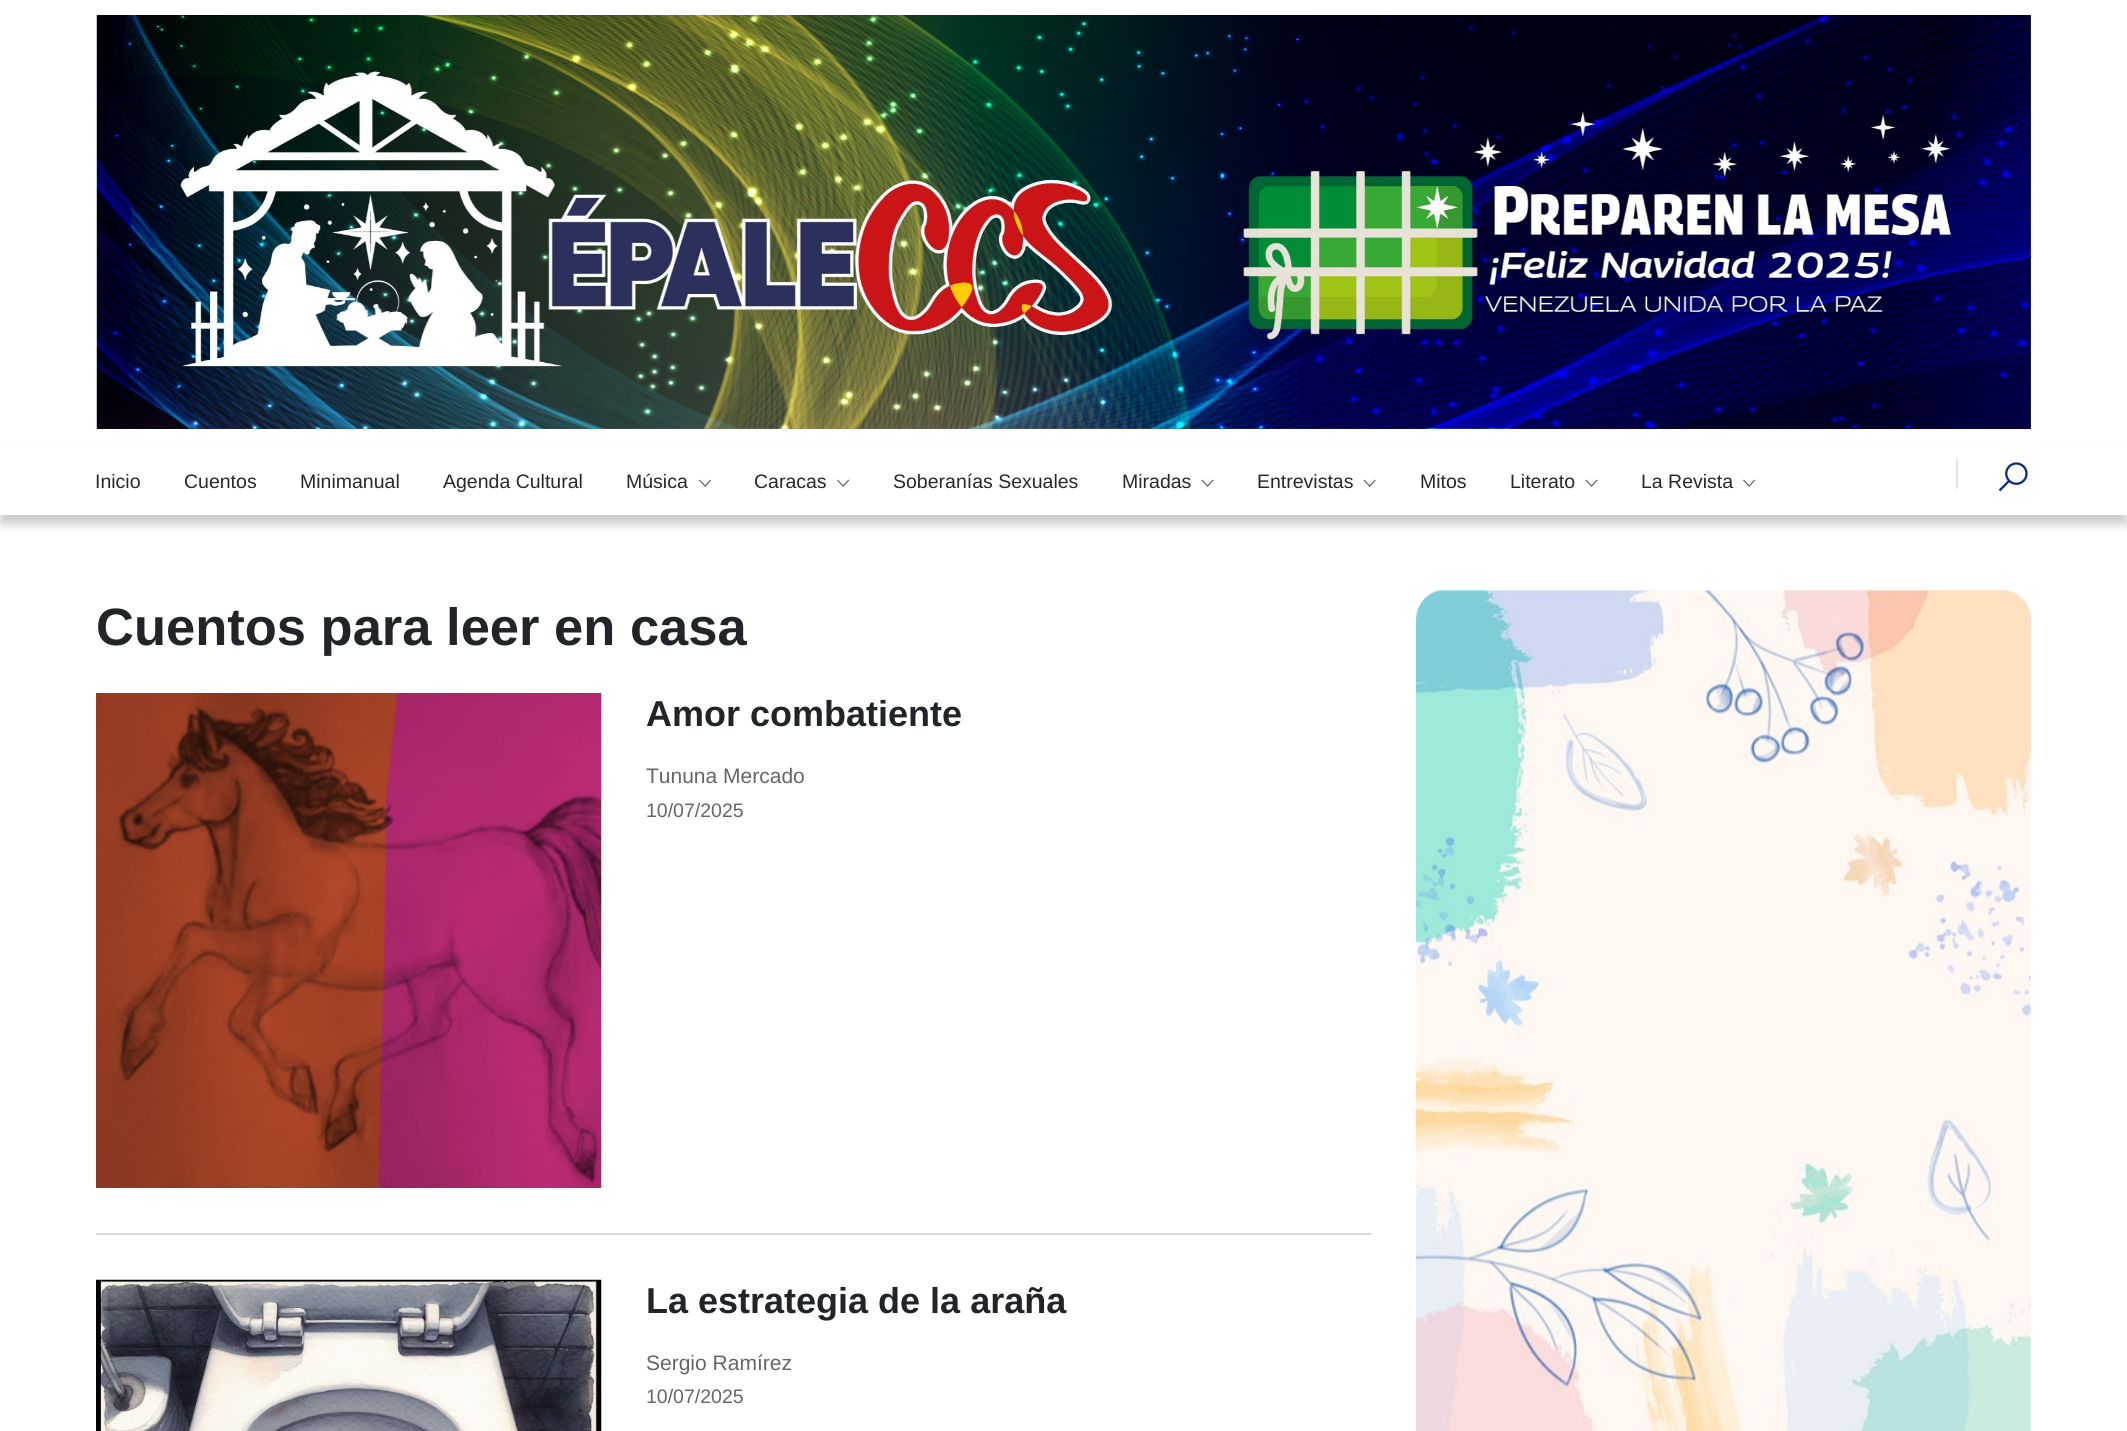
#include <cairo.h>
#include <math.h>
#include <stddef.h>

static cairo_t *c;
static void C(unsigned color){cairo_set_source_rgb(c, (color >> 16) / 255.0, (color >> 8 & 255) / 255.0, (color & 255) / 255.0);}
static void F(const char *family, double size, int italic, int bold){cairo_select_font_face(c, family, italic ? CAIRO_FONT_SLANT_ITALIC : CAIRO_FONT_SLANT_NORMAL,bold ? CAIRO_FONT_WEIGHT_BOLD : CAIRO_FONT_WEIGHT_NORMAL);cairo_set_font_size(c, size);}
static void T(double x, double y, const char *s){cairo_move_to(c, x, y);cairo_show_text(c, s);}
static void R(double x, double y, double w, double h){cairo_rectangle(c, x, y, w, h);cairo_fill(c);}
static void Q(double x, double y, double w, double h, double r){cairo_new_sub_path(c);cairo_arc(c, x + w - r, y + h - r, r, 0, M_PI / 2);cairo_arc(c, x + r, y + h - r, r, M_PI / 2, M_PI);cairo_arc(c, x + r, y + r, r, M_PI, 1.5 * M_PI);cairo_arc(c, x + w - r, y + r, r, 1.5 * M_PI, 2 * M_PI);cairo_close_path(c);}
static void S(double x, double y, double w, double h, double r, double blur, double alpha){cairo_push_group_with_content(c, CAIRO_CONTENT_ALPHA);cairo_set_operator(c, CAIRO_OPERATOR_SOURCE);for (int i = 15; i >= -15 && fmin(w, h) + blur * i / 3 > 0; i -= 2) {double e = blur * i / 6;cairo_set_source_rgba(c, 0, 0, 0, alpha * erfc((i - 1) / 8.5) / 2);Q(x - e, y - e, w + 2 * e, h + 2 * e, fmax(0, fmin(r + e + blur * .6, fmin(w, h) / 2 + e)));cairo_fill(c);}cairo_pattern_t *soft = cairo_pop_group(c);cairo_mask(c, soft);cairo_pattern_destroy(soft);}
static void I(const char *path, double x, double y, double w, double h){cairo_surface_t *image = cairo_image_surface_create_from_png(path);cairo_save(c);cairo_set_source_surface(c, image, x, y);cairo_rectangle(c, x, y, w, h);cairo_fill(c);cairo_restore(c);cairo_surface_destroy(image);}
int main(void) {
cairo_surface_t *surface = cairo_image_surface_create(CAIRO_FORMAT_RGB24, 2127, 1431);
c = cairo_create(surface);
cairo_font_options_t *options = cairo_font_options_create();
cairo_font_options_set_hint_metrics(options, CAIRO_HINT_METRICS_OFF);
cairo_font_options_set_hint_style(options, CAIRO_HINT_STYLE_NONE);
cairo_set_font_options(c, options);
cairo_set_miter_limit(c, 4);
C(0xffffff);
cairo_paint(c);
I("1.png",96,15,1935,414);
C(0x000000);
S(0,453,2127,71,0,5,.21);
C(0xffffff);
R(0,445,2127,70);
F("Liberation Sans",19.5,0,0);
C(0x282828);
T(95,488,"Inicio");
T(184,488,"Cuentos");
T(300,488,"Minimanual");
T(443,488,"Agenda Cultural");
T(626,488,"Música");
I("2.png",699,479,13,8);
T(754,488,"Caracas");
I("2.png",837,479,13,8);
T(893,488,"Soberanías Sexuales");
T(1122,488,"Miradas");
I("3.png",1201,479,13,8);
T(1257,488,"Entrevistas");
I("3.png",1363,479,13,8);
T(1420,488,"Mitos");
T(1510,488,"Literato");
I("3.png",1585,479,13,8);
T(1641,488,"La Revista");
I("2.png",1743,479,13,8);
C(0xe4e4e4);
R(1956,459,2,30);
I("4.png",1998,462,30,30);
F("Liberation Sans",52.5,0,1);
C(0x212529);
T(96,645,"Cuentos para leer en casa");
C(0xd9d9d9);
R(96,1233,1275,2);
I("5.png",96,693,506,495);
F("Liberation Sans",36,0,1);
C(0x212529);
T(646,726,"Amor combatiente");
F("Liberation Sans",21,0,0);
C(0x666666);
T(646,783,"Tununa Mercado");
F("Liberation Sans",19.5,0,0);
T(646,817,"10/07/2025");
I("6.png",96,1279,506,152);
F("Liberation Sans",36,0,1);
C(0x212529);
T(646,1313,"La estrategia de la araña");
F("Liberation Sans",21,0,0);
C(0x666666);
T(646,1370,"Sergio Ramírez");
F("Liberation Sans",19.5,0,0);
T(646,1403,"10/07/2025");
I("7.png",1416,590,615,841);
cairo_surface_write_to_png(surface, "o.png");
cairo_font_options_destroy(options);
cairo_destroy(c);
cairo_surface_destroy(surface);
return 0;
}
